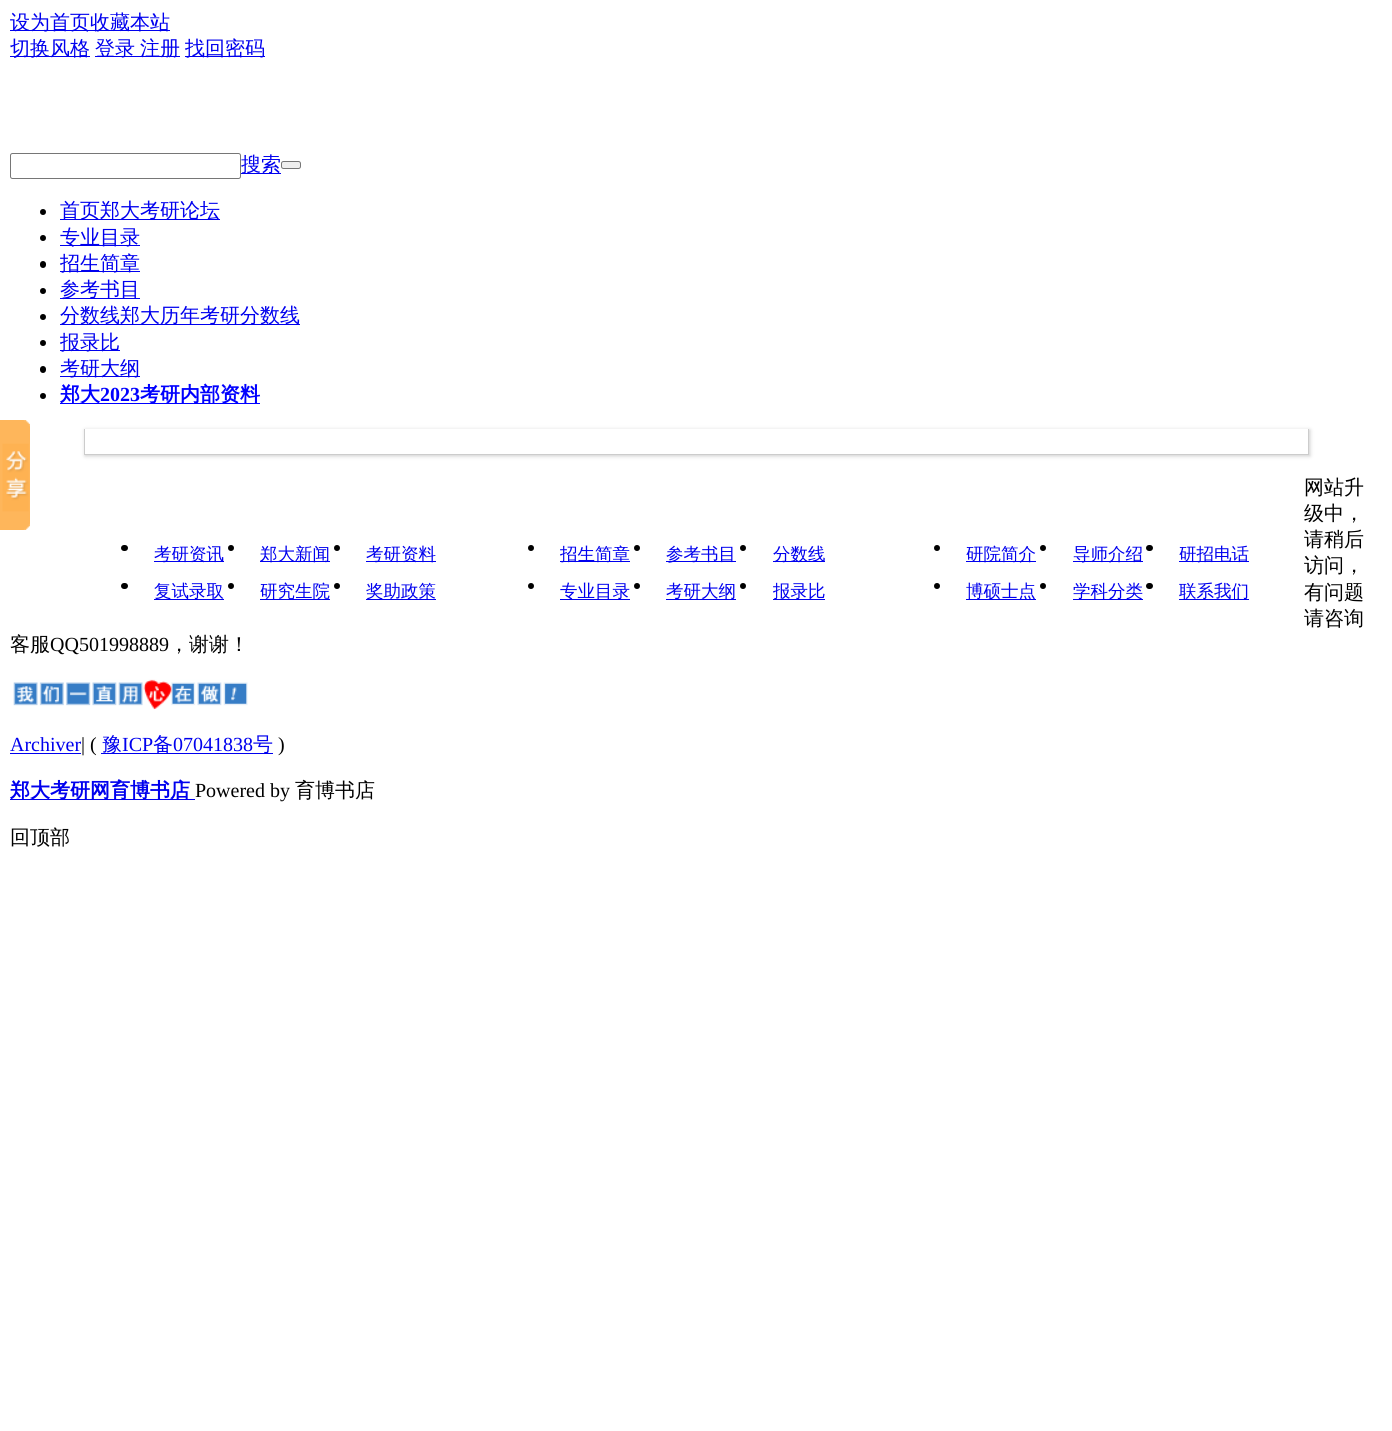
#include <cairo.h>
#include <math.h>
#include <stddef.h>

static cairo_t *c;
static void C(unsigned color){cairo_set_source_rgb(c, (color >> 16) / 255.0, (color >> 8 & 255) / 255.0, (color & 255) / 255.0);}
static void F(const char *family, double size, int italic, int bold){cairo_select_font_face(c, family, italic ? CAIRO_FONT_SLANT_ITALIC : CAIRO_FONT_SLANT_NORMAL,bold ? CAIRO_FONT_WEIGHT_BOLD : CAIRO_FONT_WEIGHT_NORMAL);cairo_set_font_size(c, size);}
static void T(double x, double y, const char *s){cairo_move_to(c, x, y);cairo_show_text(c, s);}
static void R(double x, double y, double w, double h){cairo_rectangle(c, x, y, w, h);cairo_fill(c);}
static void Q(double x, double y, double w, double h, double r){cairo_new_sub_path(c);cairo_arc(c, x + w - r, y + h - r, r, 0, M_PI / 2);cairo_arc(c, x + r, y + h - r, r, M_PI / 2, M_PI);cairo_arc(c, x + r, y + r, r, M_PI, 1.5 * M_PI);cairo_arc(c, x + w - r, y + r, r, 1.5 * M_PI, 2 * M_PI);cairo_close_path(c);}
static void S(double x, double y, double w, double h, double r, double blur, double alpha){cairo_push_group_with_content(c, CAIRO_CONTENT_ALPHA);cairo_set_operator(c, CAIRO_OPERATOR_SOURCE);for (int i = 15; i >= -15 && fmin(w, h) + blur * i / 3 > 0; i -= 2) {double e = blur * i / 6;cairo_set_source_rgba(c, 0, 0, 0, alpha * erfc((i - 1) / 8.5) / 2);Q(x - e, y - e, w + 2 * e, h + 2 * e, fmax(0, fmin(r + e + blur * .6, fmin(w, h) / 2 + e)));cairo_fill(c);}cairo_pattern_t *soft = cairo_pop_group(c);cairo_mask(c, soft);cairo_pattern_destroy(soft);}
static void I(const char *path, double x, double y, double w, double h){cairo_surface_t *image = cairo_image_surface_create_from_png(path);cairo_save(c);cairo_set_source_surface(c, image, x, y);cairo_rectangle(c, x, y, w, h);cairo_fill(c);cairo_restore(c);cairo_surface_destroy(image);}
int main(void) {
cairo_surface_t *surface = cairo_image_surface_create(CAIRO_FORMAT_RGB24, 1392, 1431);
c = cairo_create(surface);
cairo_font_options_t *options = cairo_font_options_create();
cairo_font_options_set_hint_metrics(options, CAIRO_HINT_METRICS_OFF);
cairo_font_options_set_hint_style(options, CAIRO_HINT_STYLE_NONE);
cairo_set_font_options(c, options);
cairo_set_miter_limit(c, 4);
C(0xffffff);
cairo_paint(c);
C(0x0000ee);
R(10,30,160,1);
F("WenQuanYi Zen Hei Medium",20,0,0);
T(10,29,"设为首页收藏本站");
R(10,56,80,1);
T(10,55,"切换风格");
R(95,56,85,1);
T(95,55,"登录");
T(140,55,"注册");
R(185,56,80,1);
T(185,55,"找回密码");
Q(10.5,153.5,230,25,2);
C(0x767676);
cairo_set_line_width(c,1);
cairo_stroke(c);
C(0x0000ee);
R(241,173,40,1);
T(241,171,"搜索");
C(0xefefef);
Q(281.5,161.5,19,7,2);
cairo_fill_preserve(c);
C(0x767676);
cairo_stroke(c);
C(0x000000);
cairo_arc(c,43,212,3,0,2 * M_PI);
cairo_fill(c);
C(0x0000ee);
R(60,219,160,1);
T(60,217,"首页郑大考研论坛");
C(0x000000);
cairo_new_path(c);
cairo_arc(c,43,238,3,0,2 * M_PI);
cairo_fill(c);
C(0x0000ee);
R(60,245,80,1);
T(60,244,"专业目录");
C(0x000000);
Q(40,261,6,7,3);
cairo_fill(c);
C(0x0000ee);
R(60,271,80,1);
T(60,270,"招生简章");
C(0x000000);
cairo_new_path(c);
cairo_arc(c,43,291,3,0,2 * M_PI);
cairo_fill(c);
C(0x0000ee);
R(60,298,80,1);
T(60,296,"参考书目");
C(0x000000);
cairo_new_path(c);
cairo_arc(c,43,317,3,0,2 * M_PI);
cairo_fill(c);
C(0x0000ee);
R(60,324,240,1);
T(60,322,"分数线郑大历年考研分数线");
C(0x000000);
cairo_new_path(c);
cairo_arc(c,43,343,3,0,2 * M_PI);
cairo_fill(c);
C(0x0000ee);
R(60,350,60,1);
T(60,349,"报录比");
C(0x000000);
Q(40,366,6,7,3);
cairo_fill(c);
C(0x0000ee);
R(60,376,80,1);
T(60,375,"考研大纲");
C(0x000000);
cairo_new_path(c);
cairo_arc(c,43,396,3,0,2 * M_PI);
cairo_fill(c);
C(0x0000ff);
R(60,403,200,1);
F("WenQuanYi Zen Hei",20,0,1);
T(60,401,"郑大");
F("Liberation Serif",20,0,1);
T(100,401,"2023");
F("WenQuanYi Zen Hei",20,0,1);
T(140,401,"考研内部资料");
C(0xcccccc);
S(85,430,1225,26,0,2,1);
C(0xffffff);
R(85,429,1223,25);
C(0xcccccc);
R(1308,429,1,26);
R(84,454,1225,1);
R(84,429,1,26);
C(0x000000);
Q(121,545,7,6,3);
cairo_fill(c);
C(0x0000ee);
R(154,561,70,1);
F("WenQuanYi Zen Hei Medium",17.5,0,0);
T(154,560,"考研资讯");
C(0x000000);
cairo_new_path(c);
cairo_arc(c,231,548,3,0,2 * M_PI);
cairo_fill(c);
C(0x0000ee);
R(260,561,70,1);
T(260,560,"郑大新闻");
C(0x000000);
cairo_new_path(c);
cairo_arc(c,337,548,3,0,2 * M_PI);
cairo_fill(c);
C(0x0000ee);
R(366,561,70,1);
T(366,560,"考研资料");
C(0x000000);
Q(121,583,7,6,3);
cairo_fill(c);
C(0x0000ee);
R(154,599,70,1);
T(154,597,"复试录取");
C(0x000000);
cairo_new_path(c);
cairo_arc(c,231,586,3,0,2 * M_PI);
cairo_fill(c);
C(0x0000ee);
R(260,599,70,1);
T(260,597,"研究生院");
C(0x000000);
cairo_new_path(c);
cairo_arc(c,337,586,3,0,2 * M_PI);
cairo_fill(c);
C(0x0000ee);
R(366,599,70,1);
T(366,597,"奖助政策");
C(0x000000);
cairo_new_path(c);
cairo_arc(c,531,548,3,0,2 * M_PI);
cairo_fill(c);
C(0x0000ee);
R(560,561,70,1);
T(560,560,"招生简章");
C(0x000000);
cairo_new_path(c);
cairo_arc(c,637,548,3,0,2 * M_PI);
cairo_fill(c);
C(0x0000ee);
R(666,561,70,1);
T(666,560,"参考书目");
C(0x000000);
cairo_new_path(c);
cairo_arc(c,743,548,3,0,2 * M_PI);
cairo_fill(c);
C(0x0000ee);
R(773,561,52,1);
T(773,560,"分数线");
C(0x000000);
cairo_new_path(c);
cairo_arc(c,531,586,3,0,2 * M_PI);
cairo_fill(c);
C(0x0000ee);
R(560,599,70,1);
T(560,597,"专业目录");
C(0x000000);
cairo_new_path(c);
cairo_arc(c,637,586,3,0,2 * M_PI);
cairo_fill(c);
C(0x0000ee);
R(666,599,70,1);
T(666,597,"考研大纲");
C(0x000000);
cairo_new_path(c);
cairo_arc(c,743,586,3,0,2 * M_PI);
cairo_fill(c);
C(0x0000ee);
R(773,599,52,1);
T(773,597,"报录比");
C(0x000000);
cairo_new_path(c);
cairo_arc(c,937,548,3,0,2 * M_PI);
cairo_fill(c);
C(0x0000ee);
R(966,561,70,1);
T(966,560,"研院简介");
C(0x000000);
cairo_new_path(c);
cairo_arc(c,1043,548,3,0,2 * M_PI);
cairo_fill(c);
C(0x0000ee);
R(1073,561,70,1);
T(1073,560,"导师介绍");
C(0x000000);
Q(1146,545,7,6,3);
cairo_fill(c);
C(0x0000ee);
R(1179,561,70,1);
T(1179,560,"研招电话");
C(0x000000);
cairo_new_path(c);
cairo_arc(c,937,586,3,0,2 * M_PI);
cairo_fill(c);
C(0x0000ee);
R(966,599,70,1);
T(966,597,"博硕士点");
C(0x000000);
cairo_new_path(c);
cairo_arc(c,1043,586,3,0,2 * M_PI);
cairo_fill(c);
C(0x0000ee);
R(1073,599,70,1);
T(1073,597,"学科分类");
C(0x000000);
Q(1146,583,7,6,3);
cairo_fill(c);
C(0x0000ee);
R(1179,599,70,1);
T(1179,597,"联系我们");
F("WenQuanYi Zen Hei Medium",20,0,0);
C(0x000000);
T(1304,494,"网站升");
T(1304,520,"级中，");
T(1304,546,"请稍后");
T(1304,572,"访问，");
T(1304,599,"有问题");
T(1304,625,"请咨询");
T(10,651,"客服");
F("Liberation Serif",20,0,0);
T(50,651,"QQ501998889");
F("WenQuanYi Zen Hei Medium",20,0,0);
T(169,651,"，谢谢！");
I("1.png",13,679,235,31);
F("Liberation Serif",20,0,0);
C(0x0000ee);
T(10,751,"Archiver");
R(10,753,71,1);
C(0x000000);
T(81,751,"| (");
C(0x0000ee);
R(101,753,172,1);
F("WenQuanYi Zen Hei Medium",20,0,0);
T(102,751,"豫");
F("Liberation Serif",20,0,0);
T(122,751,"ICP");
F("WenQuanYi Zen Hei Medium",20,0,0);
T(153,751,"备");
F("Liberation Serif",20,0,0);
T(173,751,"07041838");
F("WenQuanYi Zen Hei Medium",20,0,0);
T(253,751,"号");
F("Liberation Serif",20,0,0);
C(0x000000);
T(278,751,")");
C(0x0000ee);
R(10,799,185,1);
F("WenQuanYi Zen Hei",20,0,1);
T(10,797,"郑大考研网育博书店");
F("Liberation Serif",20,0,0);
C(0x000000);
T(195,797,"Powered by");
F("WenQuanYi Zen Hei Medium",20,0,0);
T(295,797,"育博书店");
T(10,844,"回顶部");
I("2.png",0,420,30,110);
cairo_surface_write_to_png(surface, "o.png");
cairo_font_options_destroy(options);
cairo_destroy(c);
cairo_surface_destroy(surface);
return 0;
}
